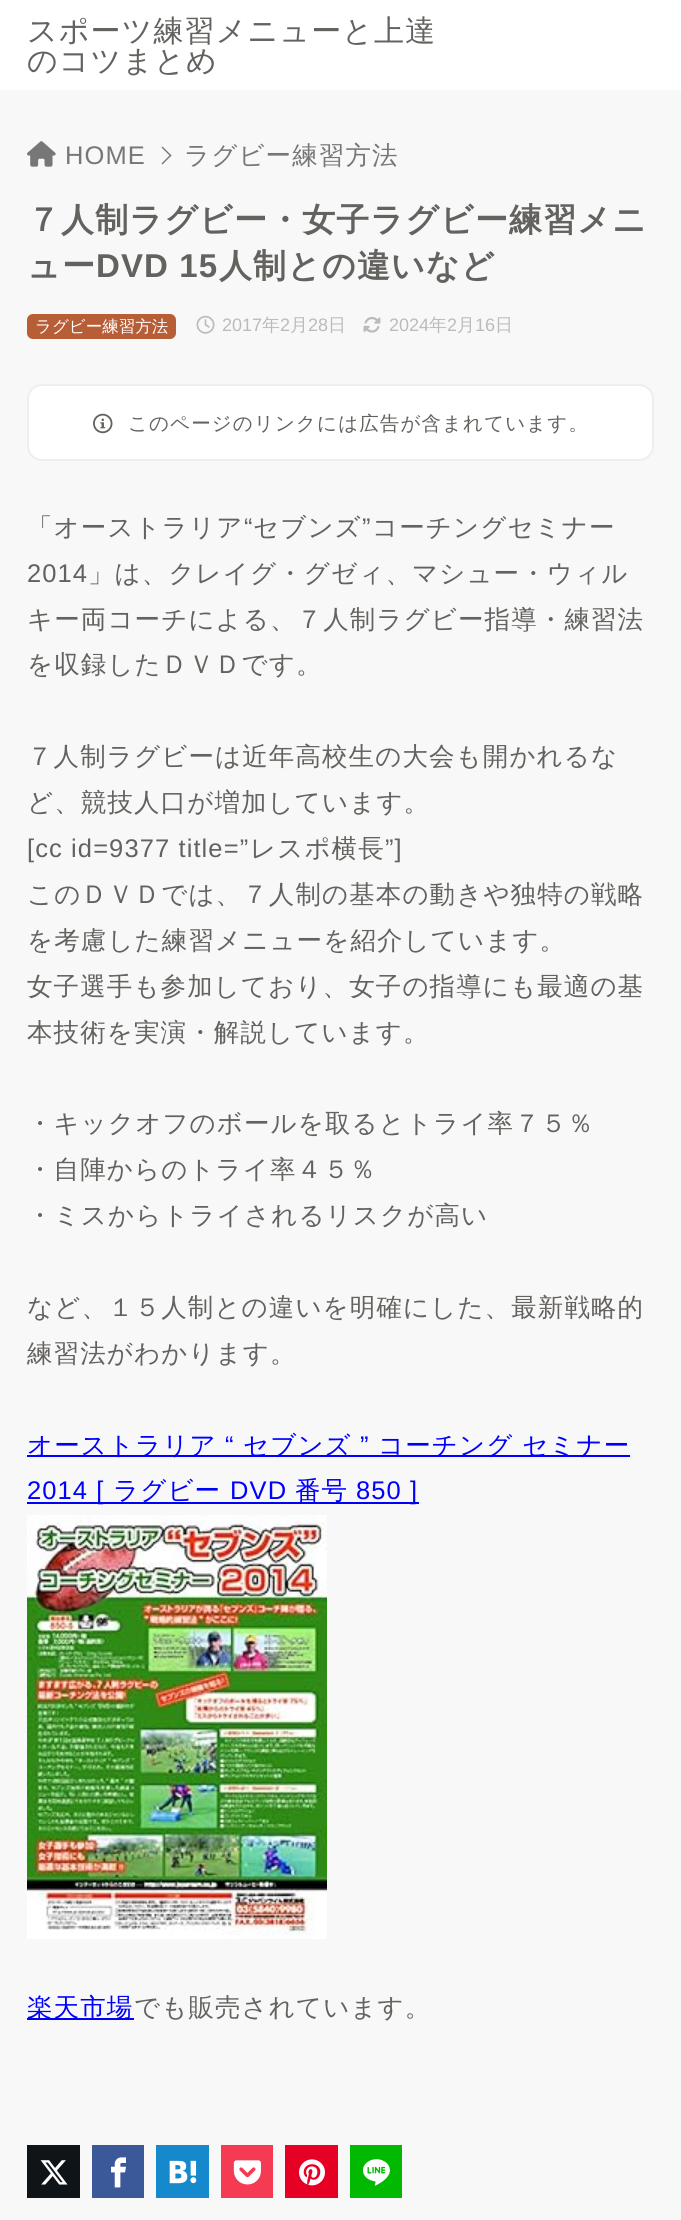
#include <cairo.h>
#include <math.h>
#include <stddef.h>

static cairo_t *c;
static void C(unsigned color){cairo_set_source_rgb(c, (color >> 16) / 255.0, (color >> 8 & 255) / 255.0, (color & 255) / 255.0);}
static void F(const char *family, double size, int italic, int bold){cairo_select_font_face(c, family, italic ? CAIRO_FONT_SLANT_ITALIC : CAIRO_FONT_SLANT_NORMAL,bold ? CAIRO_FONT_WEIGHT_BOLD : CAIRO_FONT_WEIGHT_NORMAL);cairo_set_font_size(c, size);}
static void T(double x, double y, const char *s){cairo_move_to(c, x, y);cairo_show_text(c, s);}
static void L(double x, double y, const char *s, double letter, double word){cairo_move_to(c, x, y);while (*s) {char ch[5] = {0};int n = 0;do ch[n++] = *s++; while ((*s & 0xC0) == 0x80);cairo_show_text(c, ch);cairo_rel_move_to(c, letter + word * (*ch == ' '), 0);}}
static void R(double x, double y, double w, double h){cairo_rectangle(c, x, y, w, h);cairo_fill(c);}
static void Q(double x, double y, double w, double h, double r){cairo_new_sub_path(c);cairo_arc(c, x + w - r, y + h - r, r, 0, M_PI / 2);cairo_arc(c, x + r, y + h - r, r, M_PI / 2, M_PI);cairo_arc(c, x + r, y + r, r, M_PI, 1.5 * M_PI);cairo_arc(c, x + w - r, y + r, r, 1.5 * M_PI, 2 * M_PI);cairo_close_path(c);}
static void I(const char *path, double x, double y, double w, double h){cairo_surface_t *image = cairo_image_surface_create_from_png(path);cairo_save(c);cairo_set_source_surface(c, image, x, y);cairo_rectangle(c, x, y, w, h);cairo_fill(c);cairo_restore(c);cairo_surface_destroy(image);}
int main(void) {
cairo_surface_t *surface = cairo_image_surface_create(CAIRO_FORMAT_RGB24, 681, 2220);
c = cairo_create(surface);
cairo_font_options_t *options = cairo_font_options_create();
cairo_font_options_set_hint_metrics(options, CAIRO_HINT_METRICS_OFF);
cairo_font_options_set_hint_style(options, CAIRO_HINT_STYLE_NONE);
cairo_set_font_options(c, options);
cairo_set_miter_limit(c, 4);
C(0xf8f8f8);
cairo_paint(c);
C(0xffffff);
R(0,0,681,90);
F("WenQuanYi Zen Hei Medium",30,0,0);
C(0x64625f);
L(27,41,"スポーツ練習メニューと上達",1.1,0);
L(27,71,"のコツまとめ",1.1,0);
I("1.png",27,141,29,26);
F("Liberation Sans",25.5,0,0);
C(0x777777);
L(65,164,"HOME",1.1,0);
cairo_new_path(c);
cairo_move_to(c,162.5,146.5);
cairo_line_to(c,171.5,155.5);
cairo_line_to(c,170.5,156.5);
cairo_line_to(c,161.5,147.5);
cairo_close_path(c);
cairo_fill(c);
cairo_new_path(c);
cairo_move_to(c,170.5,154.5);
cairo_line_to(c,171.5,155.5);
cairo_line_to(c,162.5,164.5);
cairo_line_to(c,161.5,163.5);
cairo_close_path(c);
cairo_fill(c);
F("WenQuanYi Zen Hei Medium",25.5,0,0);
L(184,164,"ラグビー練習方法",1.1,0);
F("WenQuanYi Zen Hei",33,0,1);
C(0x64625f);
L(27,231,"７人制ラグビー・女子ラグビー練習メニ",1.1,0);
L(27,277,"ュー",1.1,0);
F("Liberation Sans",33,0,1);
L(96,277,"DVD 15",1.1,0);
F("WenQuanYi Zen Hei",33,0,1);
L(219,277,"人制との違いなど",1.1,0);
C(0xb75e37);
Q(27,314,149,25,6);
cairo_fill(c);
F("WenQuanYi Zen Hei Medium",16.5,0,0);
C(0xffffff);
T(35,332,"ラグビー練習方法");
I("2.png",196,315,19,19);
F("Liberation Sans",18,0,0);
C(0xbbbbbb);
T(222,331,"2017");
F("WenQuanYi Zen Hei Medium",18,0,0);
T(262,331,"年");
F("Liberation Sans",18,0,0);
T(280,331,"2");
F("WenQuanYi Zen Hei Medium",18,0,0);
T(290,331,"月");
F("Liberation Sans",18,0,0);
T(308,331,"28");
F("WenQuanYi Zen Hei Medium",18,0,0);
T(328,331,"日");
I("3.png",363,316,18,17);
F("Liberation Sans",18,0,0);
T(389,331,"2024");
F("WenQuanYi Zen Hei Medium",18,0,0);
T(429,331,"年");
F("Liberation Sans",18,0,0);
T(447,331,"2");
F("WenQuanYi Zen Hei Medium",18,0,0);
T(457,331,"月");
F("Liberation Sans",18,0,0);
T(475,331,"16");
F("WenQuanYi Zen Hei Medium",18,0,0);
T(495,331,"日");
C(0xffffff);
Q(28,385,625,75,14);
cairo_fill_preserve(c);
C(0xeeeeee);
cairo_stroke(c);
I("4.png",93,413,20,21);
F("WenQuanYi Zen Hei Medium",19.5,0,0);
C(0x64625f);
L(128,430,"このページのリンクには広告が含まれています。",1.1,0);
F("WenQuanYi Zen Hei Medium",25.5,0,0);
L(27,536,"「オーストラリア",1.1,0);
F("Liberation Sans",25.5,0,0);
L(244,536,"“",1.1,0);
F("WenQuanYi Zen Hei Medium",25.5,0,0);
L(253,536,"セブンズ",1.1,0);
F("Liberation Sans",25.5,0,0);
L(362,536,"”",1.1,0);
F("WenQuanYi Zen Hei Medium",25.5,0,0);
L(372,536,"コーチングセミナー",1.1,0);
F("Liberation Sans",25.5,0,0);
L(27,582,"2014",1.1,0);
F("WenQuanYi Zen Hei Medium",25.5,0,0);
L(88,582,"」は、クレイグ・グゼィ、マシュー・ウィル",1.1,0);
L(27,628,"キー両コーチによる、７人制ラグビー指導・練習法",1.1,0);
L(27,673,"を収録したＤＶＤです。",1.1,0);
L(27,765,"７人制ラグビーは近年高校生の大会も開かれるな",1.1,0);
L(27,811,"ど、競技人口が増加しています。",1.1,0);
F("Liberation Sans",25.5,0,0);
L(27,857,"[cc id=9377 title=”",1.1,0);
F("WenQuanYi Zen Hei Medium",25.5,0,0);
L(250,857,"レスポ横長",1.1,0);
F("Liberation Sans",25.5,0,0);
L(385,857,"”]",1.1,0);
F("WenQuanYi Zen Hei Medium",25.5,0,0);
L(27,903,"このＤＶＤでは、７人制の基本の動きや独特の戦略",1.1,0);
L(27,949,"を考慮した練習メニューを紹介しています。",1.1,0);
L(27,995,"女子選手も参加しており、女子の指導にも最適の基",1.1,0);
L(27,1041,"本技術を実演・解説しています。",1.1,0);
L(27,1132,"・キックオフのボールを取るとトライ率７５％",1.1,0);
L(27,1178,"・自陣からのトライ率４５％",1.1,0);
L(27,1224,"・ミスからトライされるリスクが高い",1.1,0);
L(27,1316,"など、１５人制との違いを明確にした、最新戦略的",1.1,0);
L(27,1362,"練習法がわかります。",1.1,0);
C(0x0000ff);
R(27,1455,603,2);
L(27,1454,"オーストラリア",1.1,0);
F("Liberation Sans",25.5,0,0);
L(225,1454,"“",1.1,0);
F("WenQuanYi Zen Hei Medium",25.5,0,0);
L(243,1454,"セブンズ",1.1,0);
F("Liberation Sans",25.5,0,0);
L(360,1454,"”",1.1,0);
F("WenQuanYi Zen Hei Medium",25.5,0,0);
L(378,1454,"コーチング セミナー",1.1,0);
R(27,1502,392,2);
F("Liberation Sans",25.5,0,0);
L(27,1499,"2014 [",1.1,0);
F("WenQuanYi Zen Hei Medium",25.5,0,0);
L(113,1499,"ラグビー",1.1,0);
F("Liberation Sans",25.5,0,0);
L(230,1499,"DVD",1.1,0);
F("WenQuanYi Zen Hei Medium",25.5,0,0);
L(295,1499,"番号",1.1,0);
F("Liberation Sans",25.5,0,0);
L(356,1499,"850 ]",1.1,0);
I("5.png",27,1515,300,424);
R(27,2018,107,2);
F("WenQuanYi Zen Hei Medium",25.5,0,0);
L(27,2016,"楽天市場",1.1,0);
C(0x64625f);
L(134,2016,"でも販売されています。",1.1,0);
C(0x0f1419);
R(27,2145,53,53);
I("6.png",40,2160,28,25);
C(0x3b5998);
R(92,2145,52,53);
I("7.png",111,2157,15,31);
C(0x1589cc);
R(156,2145,53,53);
I("8.png",169,2160,28,24);
C(0xf43b53);
R(221,2145,52,53);
I("9.png",233,2160,28,25);
C(0xe60023);
R(285,2145,53,53);
I("10.png",299,2159,26,27);
C(0x00b900);
R(350,2145,52,53);
I("11.png",362,2159,28,27);
cairo_surface_write_to_png(surface, "o.png");
cairo_font_options_destroy(options);
cairo_destroy(c);
cairo_surface_destroy(surface);
return 0;
}
